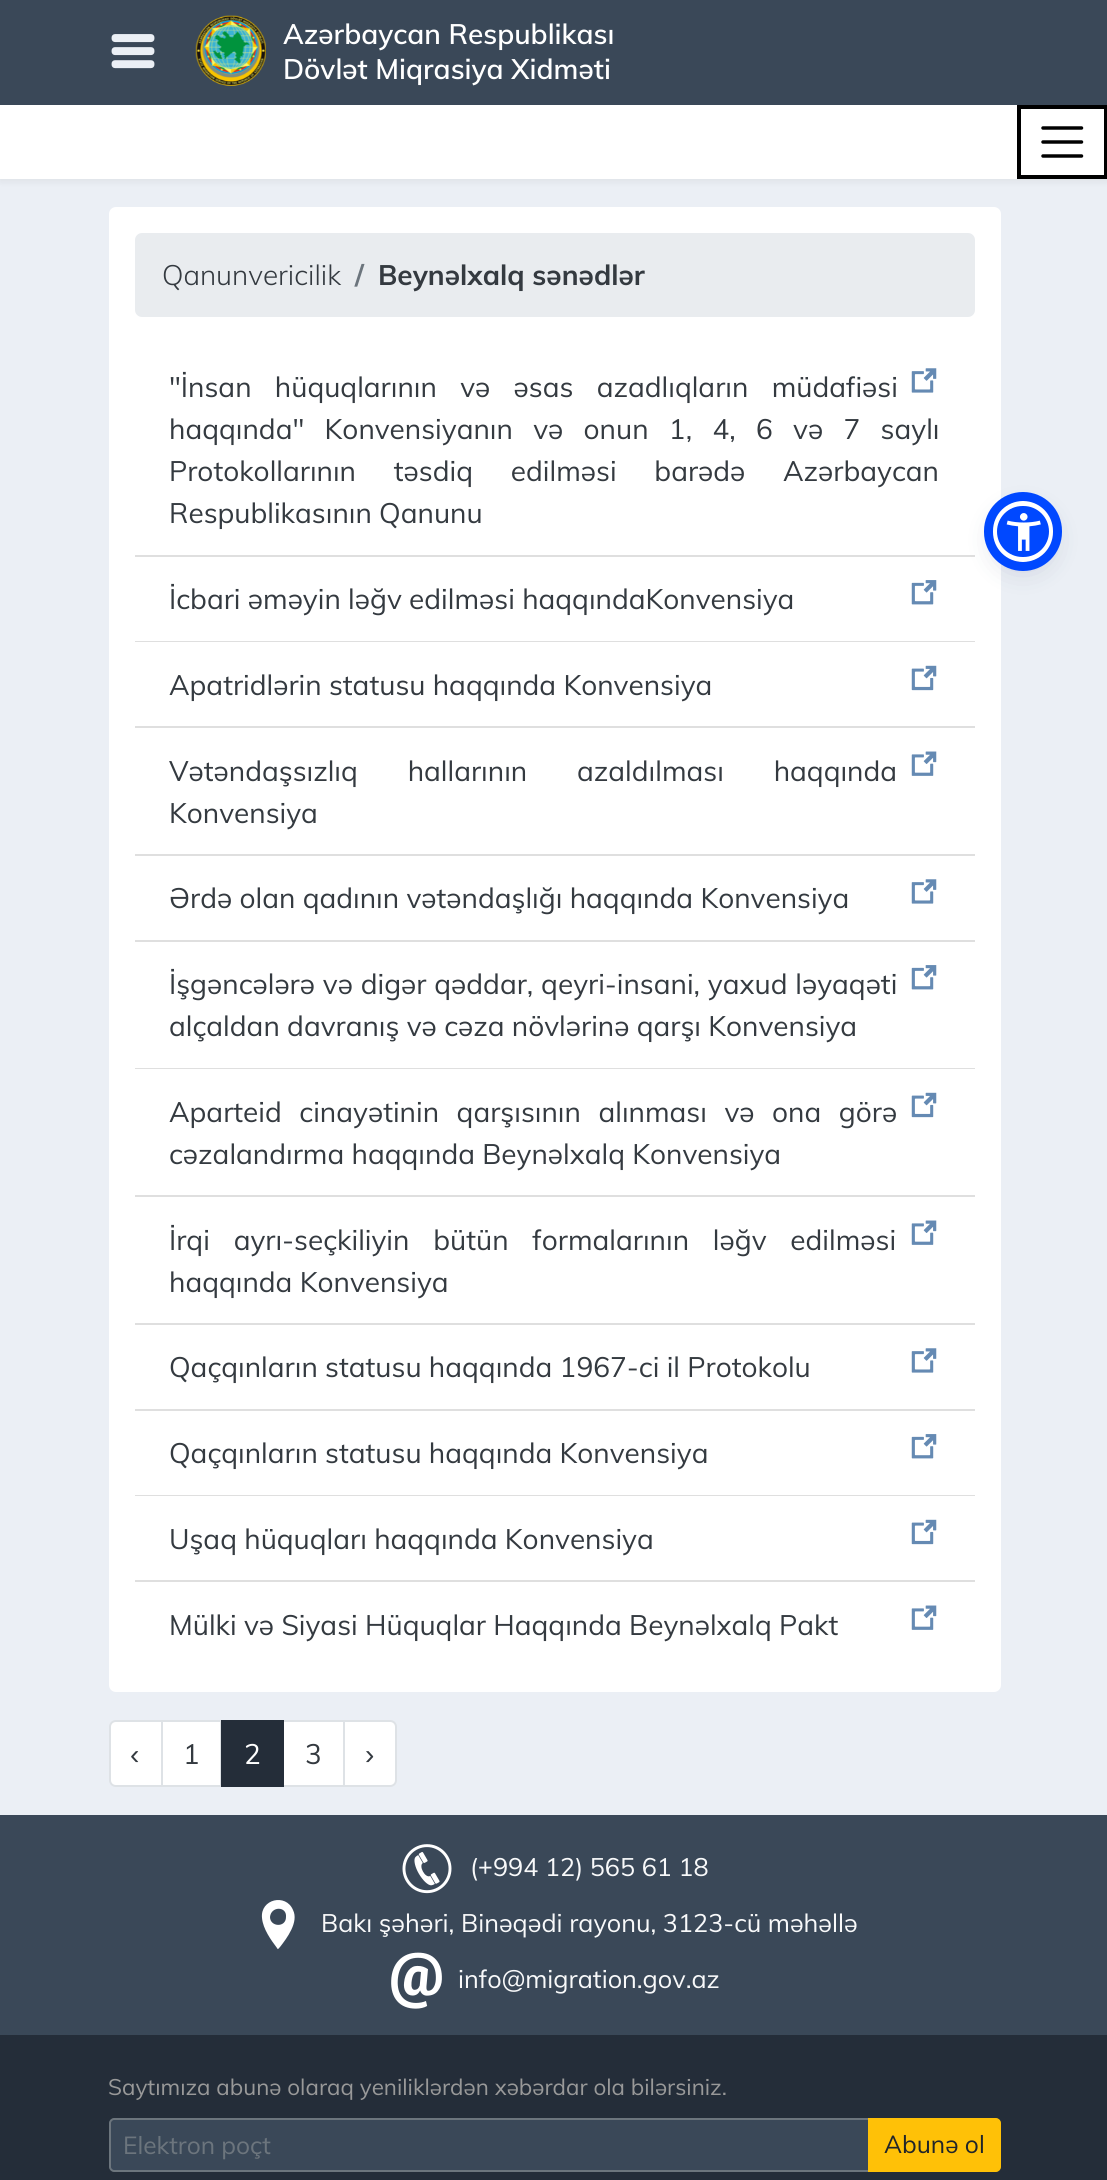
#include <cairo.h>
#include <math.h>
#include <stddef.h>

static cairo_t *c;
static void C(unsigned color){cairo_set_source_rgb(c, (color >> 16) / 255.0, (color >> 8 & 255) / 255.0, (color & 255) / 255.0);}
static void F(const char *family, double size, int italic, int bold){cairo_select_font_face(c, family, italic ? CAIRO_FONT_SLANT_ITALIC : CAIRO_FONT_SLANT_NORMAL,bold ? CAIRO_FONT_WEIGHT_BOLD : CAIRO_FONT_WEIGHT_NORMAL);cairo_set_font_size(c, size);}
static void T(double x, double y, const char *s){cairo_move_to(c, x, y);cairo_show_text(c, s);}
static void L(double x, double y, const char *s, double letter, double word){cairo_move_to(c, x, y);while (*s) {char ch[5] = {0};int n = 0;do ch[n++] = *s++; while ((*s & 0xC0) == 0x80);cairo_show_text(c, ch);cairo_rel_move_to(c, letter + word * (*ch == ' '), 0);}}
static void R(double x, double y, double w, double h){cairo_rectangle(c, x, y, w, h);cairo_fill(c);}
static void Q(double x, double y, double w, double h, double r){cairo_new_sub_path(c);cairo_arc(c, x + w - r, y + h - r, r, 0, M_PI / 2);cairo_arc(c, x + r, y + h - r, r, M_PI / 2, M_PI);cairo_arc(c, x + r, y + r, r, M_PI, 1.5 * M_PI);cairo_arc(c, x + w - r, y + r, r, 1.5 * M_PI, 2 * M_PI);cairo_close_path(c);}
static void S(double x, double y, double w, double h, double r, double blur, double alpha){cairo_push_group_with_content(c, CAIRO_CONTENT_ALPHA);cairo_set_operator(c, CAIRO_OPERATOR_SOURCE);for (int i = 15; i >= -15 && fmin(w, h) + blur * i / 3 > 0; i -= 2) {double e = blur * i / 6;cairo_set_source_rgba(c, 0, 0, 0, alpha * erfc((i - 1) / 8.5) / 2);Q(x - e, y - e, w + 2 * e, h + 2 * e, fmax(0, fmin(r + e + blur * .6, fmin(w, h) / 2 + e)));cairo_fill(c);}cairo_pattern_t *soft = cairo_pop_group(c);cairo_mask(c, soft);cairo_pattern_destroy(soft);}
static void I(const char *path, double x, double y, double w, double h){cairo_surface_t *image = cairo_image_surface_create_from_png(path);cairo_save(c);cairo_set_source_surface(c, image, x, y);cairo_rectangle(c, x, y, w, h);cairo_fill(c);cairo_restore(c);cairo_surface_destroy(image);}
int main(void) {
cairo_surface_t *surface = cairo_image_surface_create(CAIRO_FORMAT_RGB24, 1107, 2180);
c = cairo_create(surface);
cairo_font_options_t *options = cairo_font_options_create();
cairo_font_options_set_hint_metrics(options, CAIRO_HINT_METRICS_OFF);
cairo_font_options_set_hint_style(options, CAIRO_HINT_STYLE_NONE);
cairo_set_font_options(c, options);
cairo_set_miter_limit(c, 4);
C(0xebeff5);
cairo_paint(c);
C(0x000000);
S(0,107,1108,73,0,4.5,.08);
C(0x3a4858);
R(0,0,1107,105);
I("1.png",111,34,44,35);
I("2.png",195,15,71,71);
F("Muli SemiBold",28,0,0);
C(0xffffff);
T(283,44,"Azərbaycan Respublikası");
T(283,79,"Dövlət Miqrasiya Xidməti");
R(0,105,1104,74);
cairo_rectangle(c,1019,107,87,70);
C(0x000000);
cairo_set_line_width(c,4);
cairo_stroke(c);
cairo_new_path(c);
cairo_move_to(c,1043,128);
cairo_line_to(c,1081.5,128);
cairo_move_to(c,1043,142);
cairo_line_to(c,1081.5,142);
cairo_move_to(c,1043,156);
cairo_line_to(c,1081.5,156);
cairo_set_line_width(c,3.5);
cairo_set_line_cap(c,CAIRO_LINE_CAP_ROUND);
cairo_stroke(c);
C(0xffffff);
Q(109,207,892,1485,7);
cairo_fill(c);
C(0xe9ecef);
Q(135,233,840,84,7);
cairo_fill(c);
F("Muli Light",28,0,0);
C(0x343a40);
T(162,285,"Qanunvericilik");
F("Muli",28,0,1);
C(0x6c757d);
T(355,285,"/");
C(0x343a40);
T(378,285,"Beynəlxalq sənədlər");
C(0xdfdfdf);
R(135,555,840,2);
F("Muli",28,0,0);
C(0x343a40);
L(169,397,"\"İnsan hüquqlarının və əsas azadlıqların müdafiəsi",0,16);
I("3.png",911,368,26,25);
L(169,439,"haqqında\" Konvensiyanın və onun 1, 4, 6 və 7 saylı",0,13);
L(169,481,"Protokollarının təsdiq edilməsi barədə",0,30.5);
T(783,481,"Azərbaycan");
T(169,523,"Respublikasının Qanunu");
C(0xdfdfdf);
R(135,641,840,1);
C(0x343a40);
T(169,609,"İcbari əməyin ləğv edilməsi haqqındaKonvensiya");
I("4.png",911,580,26,25);
C(0xdfdfdf);
R(135,726,840,2);
C(0x343a40);
T(169,695,"Apatridlərin statusu haqqında Konvensiya");
I("5.png",911,665,26,26);
C(0xdfdfdf);
R(135,854,840,2);
C(0x343a40);
L(169,781,"Vətəndaşsızlıq hallarının azaldılması haqqında",0,42.5);
I("6.png",911,751,26,25);
T(169,823,"Konvensiya");
C(0xdfdfdf);
R(135,940,840,2);
C(0x343a40);
T(169,908,"Ərdə olan qadının vətəndaşlığı haqqında Konvensiya");
I("3.png",911,879,26,25);
C(0xdfdfdf);
R(135,1068,840,1);
C(0x343a40);
L(169,994,"İşgəncələrə və digər qəddar, qeyri-insani, yaxud ləyaqəti",0,.5);
I("4.png",911,965,26,25);
T(169,1036,"alçaldan davranış və cəza növlərinə qarşı Konvensiya");
C(0xdfdfdf);
R(135,1195,840,2);
C(0x343a40);
L(169,1122,"Aparteid cinayətinin qarşısının alınması və ona görə",0,10.25);
I("5.png",911,1092,26,26);
T(169,1164,"cəzalandırma haqqında Beynəlxalq Konvensiya");
C(0xdfdfdf);
R(135,1323,840,2);
C(0x343a40);
L(169,1250,"İrqi ayrı-seçkiliyin bütün formalarının ləğv edilməsi",0,16.5);
I("6.png",911,1220,26,25);
T(169,1292,"haqqında Konvensiya");
C(0xdfdfdf);
R(135,1409,840,2);
C(0x343a40);
T(169,1377,"Qaçqınların statusu haqqında 1967-ci il Protokolu");
I("3.png",911,1348,26,25);
C(0xdfdfdf);
R(135,1495,840,1);
C(0x343a40);
T(169,1463,"Qaçqınların statusu haqqında Konvensiya");
I("4.png",911,1434,26,25);
C(0xdfdfdf);
R(135,1580,840,2);
C(0x343a40);
T(169,1549,"Uşaq hüquqları haqqında Konvensiya");
I("5.png",911,1519,26,26);
T(169,1635,"Mülki və Siyasi Hüquqlar Haqqında Beynəlxalq Pakt");
I("6.png",911,1605,26,25);
C(0xffffff);
cairo_new_path(c);
cairo_move_to(c,116,1721);
cairo_line_to(c,162,1721);
cairo_line_to(c,162,1786);
cairo_line_to(c,116,1786);
cairo_curve_to(c,112.5,1786,110,1783.5,110,1780);
cairo_line_to(c,110,1727);
cairo_curve_to(c,110,1723.5,112.5,1721,116,1721);
cairo_close_path(c);
cairo_fill_preserve(c);
C(0xdee2e6);
cairo_set_line_width(c,2);
cairo_set_line_cap(c,CAIRO_LINE_CAP_BUTT);
cairo_stroke(c);
F("Liberation Sans",28,0,0);
C(0x343a40);
T(130,1764,"‹");
C(0xffffff);
cairo_rectangle(c,162,1721,59,65);
cairo_fill_preserve(c);
C(0xdee2e6);
cairo_stroke(c);
F("Muli",28,0,0);
C(0x343a40);
T(183,1764,"1");
C(0xffffff);
cairo_rectangle(c,283,1721,61,65);
cairo_fill_preserve(c);
C(0xdee2e6);
cairo_stroke(c);
C(0x242d39);
R(221,1720,63,67);
C(0xffffff);
T(244,1764,"2");
C(0x343a40);
T(305,1764,"3");
C(0xffffff);
cairo_new_path(c);
cairo_move_to(c,344,1721);
cairo_line_to(c,390,1721);
cairo_curve_to(c,393.5,1721,396,1723.5,396,1727);
cairo_line_to(c,396,1780);
cairo_curve_to(c,396,1783.5,393.5,1786,390,1786);
cairo_line_to(c,344,1786);
cairo_close_path(c);
cairo_fill_preserve(c);
C(0xdee2e6);
cairo_stroke(c);
F("Liberation Sans",28,0,0);
C(0x343a40);
T(365,1764,"›");
C(0x3a4858);
R(0,1815,1107,220);
I("7.png",402,1844,50,50);
F("Muli",25.2,0,0);
C(0xf8f9fa);
T(470,1876,"(");
F("Liberation Sans",25.2,0,0);
T(478,1876,"+");
F("Muli",25.2,0,0);
T(493,1876,"994 12) 565 61 18");
C(0xffffff);
cairo_new_path(c);
cairo_move_to(c,277,1948);
cairo_curve_to(c,271,1940,263,1929,262,1918);
cairo_curve_to(c,260,1899,286,1893,293,1910);
cairo_curve_to(c,299,1922,287,1938,280,1947);
cairo_curve_to(c,278,1949,278,1950,277,1948);
cairo_close_path(c);
cairo_move_to(c,286,1917);
cairo_curve_to(c,287,1906,271,1906,270,1917);
cairo_curve_to(c,270,1927,286,1928,286,1917);
cairo_close_path(c);
cairo_fill(c);
C(0xf8f9fa);
T(321,1932,"Bakı şəhəri, Binəqədi rayonu, 3123-cü məhəllə");
I("8.png",391,1952,51,57);
T(458,1988,"info@migration.gov.az");
C(0x242d39);
R(0,2035,1107,145);
F("Muli",22.4,0,0);
C(0x999999);
T(108,2095,"Saytımıza abunə olaraq yeniliklərdən xəbərdar ola bilərsiniz.");
C(0x3a4858);
cairo_new_path(c);
cairo_move_to(c,114,2119);
cairo_line_to(c,869,2119);
cairo_line_to(c,869,2171);
cairo_line_to(c,114,2171);
cairo_curve_to(c,112,2171,110,2169,110,2167);
cairo_line_to(c,110,2123);
cairo_curve_to(c,110,2121,112,2119,114,2119);
cairo_close_path(c);
cairo_fill_preserve(c);
C(0x6c757d);
cairo_stroke(c);
F("Muli",24.5,0,0);
T(123,2154,"Elektron poçt");
C(0xffc107);
cairo_new_path(c);
cairo_move_to(c,869,2119);
cairo_line_to(c,996,2119);
cairo_curve_to(c,998,2119,1000,2121,1000,2123);
cairo_line_to(c,1000,2167);
cairo_curve_to(c,1000,2169,998,2171,996,2171);
cairo_line_to(c,869,2171);
cairo_close_path(c);
cairo_fill_preserve(c);
cairo_stroke(c);
C(0x212529);
T(884,2153,"Abunə ol");
C(0x5d6494);
S(992,504,62,61,30.5,3.5,.2);
C(0x252c61);
S(992,509,62,62,31,13,.15);
C(0x0048ff);
Q(994.5,503.5,57,56,28);
cairo_fill_preserve(c);
C(0xffffff);
cairo_set_line_width(c,5);
cairo_stroke(c);
Q(988.5,496.5,69,70,34.5);
C(0x0048ff);
cairo_set_line_width(c,9);
cairo_stroke(c);
I("9.png",1006,513,35,38);
cairo_surface_write_to_png(surface, "o.png");
cairo_font_options_destroy(options);
cairo_destroy(c);
cairo_surface_destroy(surface);
return 0;
}
